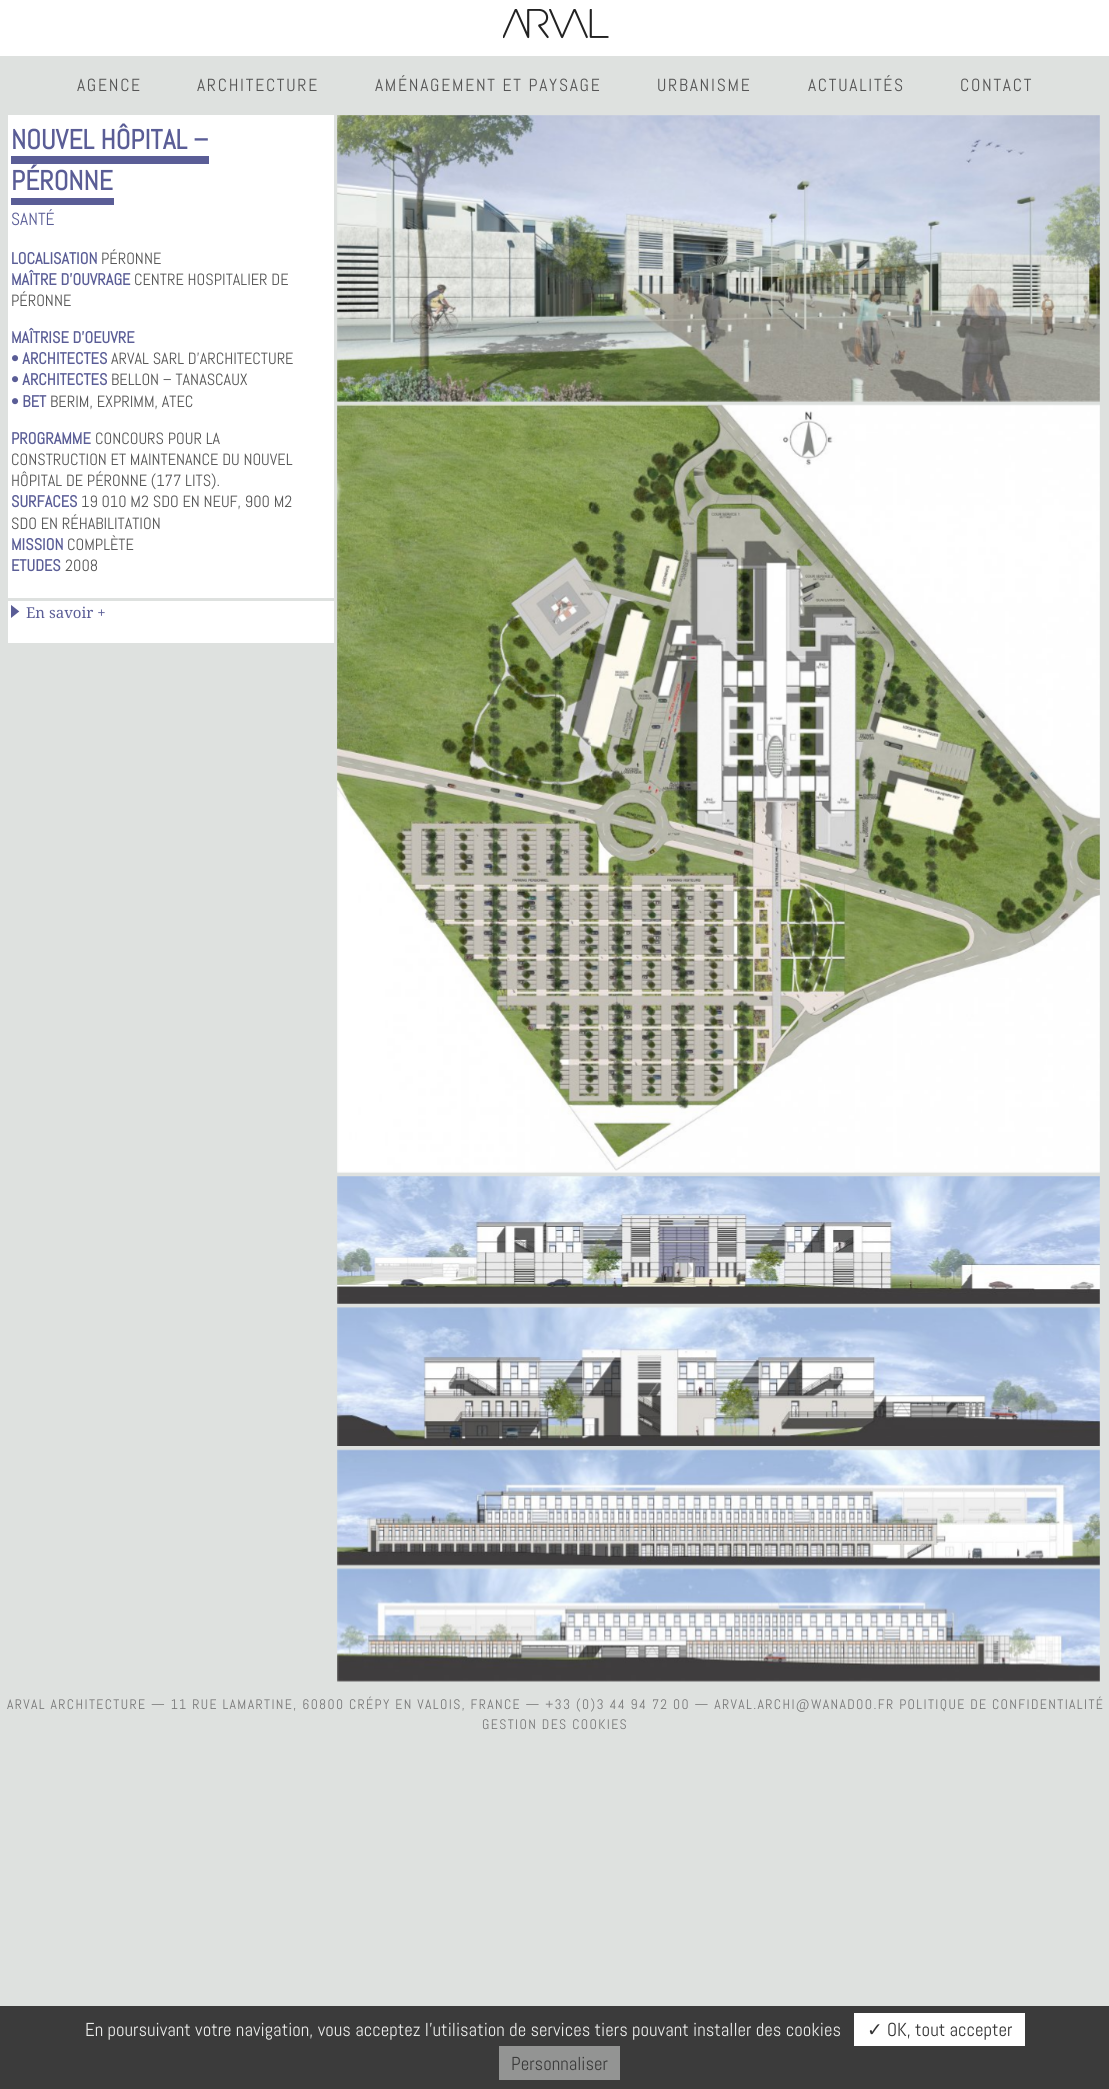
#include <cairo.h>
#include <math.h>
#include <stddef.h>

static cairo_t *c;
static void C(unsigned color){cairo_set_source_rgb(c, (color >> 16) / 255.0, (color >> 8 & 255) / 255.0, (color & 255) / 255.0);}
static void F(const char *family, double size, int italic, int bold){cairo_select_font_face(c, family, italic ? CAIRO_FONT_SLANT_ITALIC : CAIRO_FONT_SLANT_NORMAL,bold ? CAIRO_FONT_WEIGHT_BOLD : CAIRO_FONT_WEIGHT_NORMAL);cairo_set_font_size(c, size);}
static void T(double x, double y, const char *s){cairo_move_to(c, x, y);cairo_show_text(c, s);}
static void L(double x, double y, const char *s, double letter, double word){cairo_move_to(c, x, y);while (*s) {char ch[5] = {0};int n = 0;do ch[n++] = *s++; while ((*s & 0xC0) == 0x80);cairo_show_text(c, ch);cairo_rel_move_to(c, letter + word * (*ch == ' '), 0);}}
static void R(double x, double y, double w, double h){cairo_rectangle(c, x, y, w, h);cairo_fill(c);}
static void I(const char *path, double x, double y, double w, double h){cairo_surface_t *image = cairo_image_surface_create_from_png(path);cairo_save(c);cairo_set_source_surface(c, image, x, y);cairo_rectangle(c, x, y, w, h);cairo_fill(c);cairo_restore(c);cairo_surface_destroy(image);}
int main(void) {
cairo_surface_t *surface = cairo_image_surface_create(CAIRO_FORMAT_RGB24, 1109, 2089);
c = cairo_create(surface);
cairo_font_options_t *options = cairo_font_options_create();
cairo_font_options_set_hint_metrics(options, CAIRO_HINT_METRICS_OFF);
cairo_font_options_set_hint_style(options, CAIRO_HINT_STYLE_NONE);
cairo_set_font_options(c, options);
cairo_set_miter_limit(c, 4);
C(0xdee1df);
cairo_paint(c);
C(0xffffff);
R(0,0,1109,56);
I("1.png",503,9,106,30);
F("Abel",17.5,0,0);
C(0x555555);
L(77,91,"AGENCE",1.75,0);
L(197,91,"ARCHITECTURE",1.75,0);
L(375,91,"AMÉNAGEMENT ET PAYSAGE",1.75,0);
L(657,91,"URBANISME",1.75,0);
L(808,91,"ACTUALITÉS",1.75,0);
L(960,91,"CONTACT",1.75,0);
C(0xffffff);
R(8,115,326,483);
F("Abel",27.5,0,1);
C(0x5a5d96);
T(11,149,"NOUVEL HÔPITAL –");
T(11,190,"PÉRONNE");
R(11,156,198,8);
R(11,198,103,7);
F("Abel",17.5,0,0);
T(11,225,"SANTÉ");
F("Abel",16.25,0,1);
T(11,264,"LOCALISATION");
F("Abel",16.25,0,0);
C(0x555555);
T(101,264,"PÉRONNE");
F("Abel",16.25,0,1);
C(0x5a5d96);
T(11,285,"MAÎTRE D’OUVRAGE");
F("Abel",16.25,0,0);
C(0x555555);
T(134,285,"CENTRE HOSPITALIER DE");
T(11,306,"PÉRONNE");
F("Abel",16.25,0,1);
C(0x5a5d96);
T(11,343,"MAÎTRISE D’OEUVRE");
T(11,364,"• ARCHITECTES");
F("Abel",16.25,0,0);
C(0x555555);
T(111,364,"ARVAL SARL D’ARCHITECTURE");
F("Abel",16.25,0,1);
C(0x5a5d96);
T(11,385,"• ARCHITECTES");
F("Abel",16.25,0,0);
C(0x555555);
T(111,385,"BELLON – TANASCAUX");
F("Abel",16.25,0,1);
C(0x5a5d96);
T(11,407,"• BET");
F("Abel",16.25,0,0);
C(0x555555);
T(50,407,"BERIM, EXPRIMM, ATEC");
F("Abel",16.25,0,1);
C(0x5a5d96);
T(11,444,"PROGRAMME");
F("Abel",16.25,0,0);
C(0x555555);
T(95,444,"CONCOURS POUR LA");
T(11,465,"CONSTRUCTION ET MAINTENANCE DU NOUVEL");
T(11,486,"HÔPITAL DE PÉRONNE (177 LITS).");
F("Abel",16.25,0,1);
C(0x5a5d96);
T(11,507,"SURFACES");
F("Abel",16.25,0,0);
C(0x555555);
T(81,507,"19 010 M2 SDO EN NEUF, 900 M2");
T(11,529,"SDO EN RÉHABILITATION");
F("Abel",16.25,0,1);
C(0x5a5d96);
T(11,550,"MISSION");
F("Abel",16.25,0,0);
C(0x555555);
T(67,550,"COMPLÈTE");
F("Abel",16.25,0,1);
C(0x5a5d96);
T(11,571,"ETUDES");
F("Abel",16.25,0,0);
C(0x555555);
T(65,571,"2008");
C(0xffffff);
R(8,601,326,42);
F("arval",15,0,0);
C(0x5a5d96);
T(11,618,">");
F("Droid Serif",15,0,0);
T(26,618,"En savoir +");
I("2.png",337,115,763,287);
I("3.png",337,404,763,769);
I("4.png",337,1176,763,128);
I("5.png",337,1307,763,139);
I("6.png",337,1449,763,117);
I("7.png",337,1568,763,114);
F("Abel",13.75,0,0);
C(0x777777);
L(7,1709,"ARVAL ARCHITECTURE — 11 RUE LAMARTINE, 60800 CRÉPY EN VALOIS, FRANCE — +33 (0)3 44 94 72 00 — ARVAL.ARCHI@WANADOO.FR POLITIQUE DE CONFIDENTIALITÉ",1.38,0);
L(482,1729,"GESTION DES COOKIES",1.38,0);
C(0x3b3b3b);
R(0,2006,1109,83);
F("Abel",18.75,0,0);
C(0xebeceb);
T(85,2036,"En poursuivant votre navigation, vous acceptez l'utilisation de services tiers pouvant installer des cookies");
C(0xffffff);
R(854,2013,171,33);
F("DejaVu Sans",18.75,0,0);
C(0x333333);
T(867,2036,"✓");
F("Abel",18.75,0,0);
T(887,2036,"OK, tout accepter");
C(0x939493);
R(499,2046,121,34);
C(0x3b3b3b);
T(511,2070,"Personnaliser");
cairo_surface_write_to_png(surface, "o.png");
cairo_font_options_destroy(options);
cairo_destroy(c);
cairo_surface_destroy(surface);
return 0;
}
